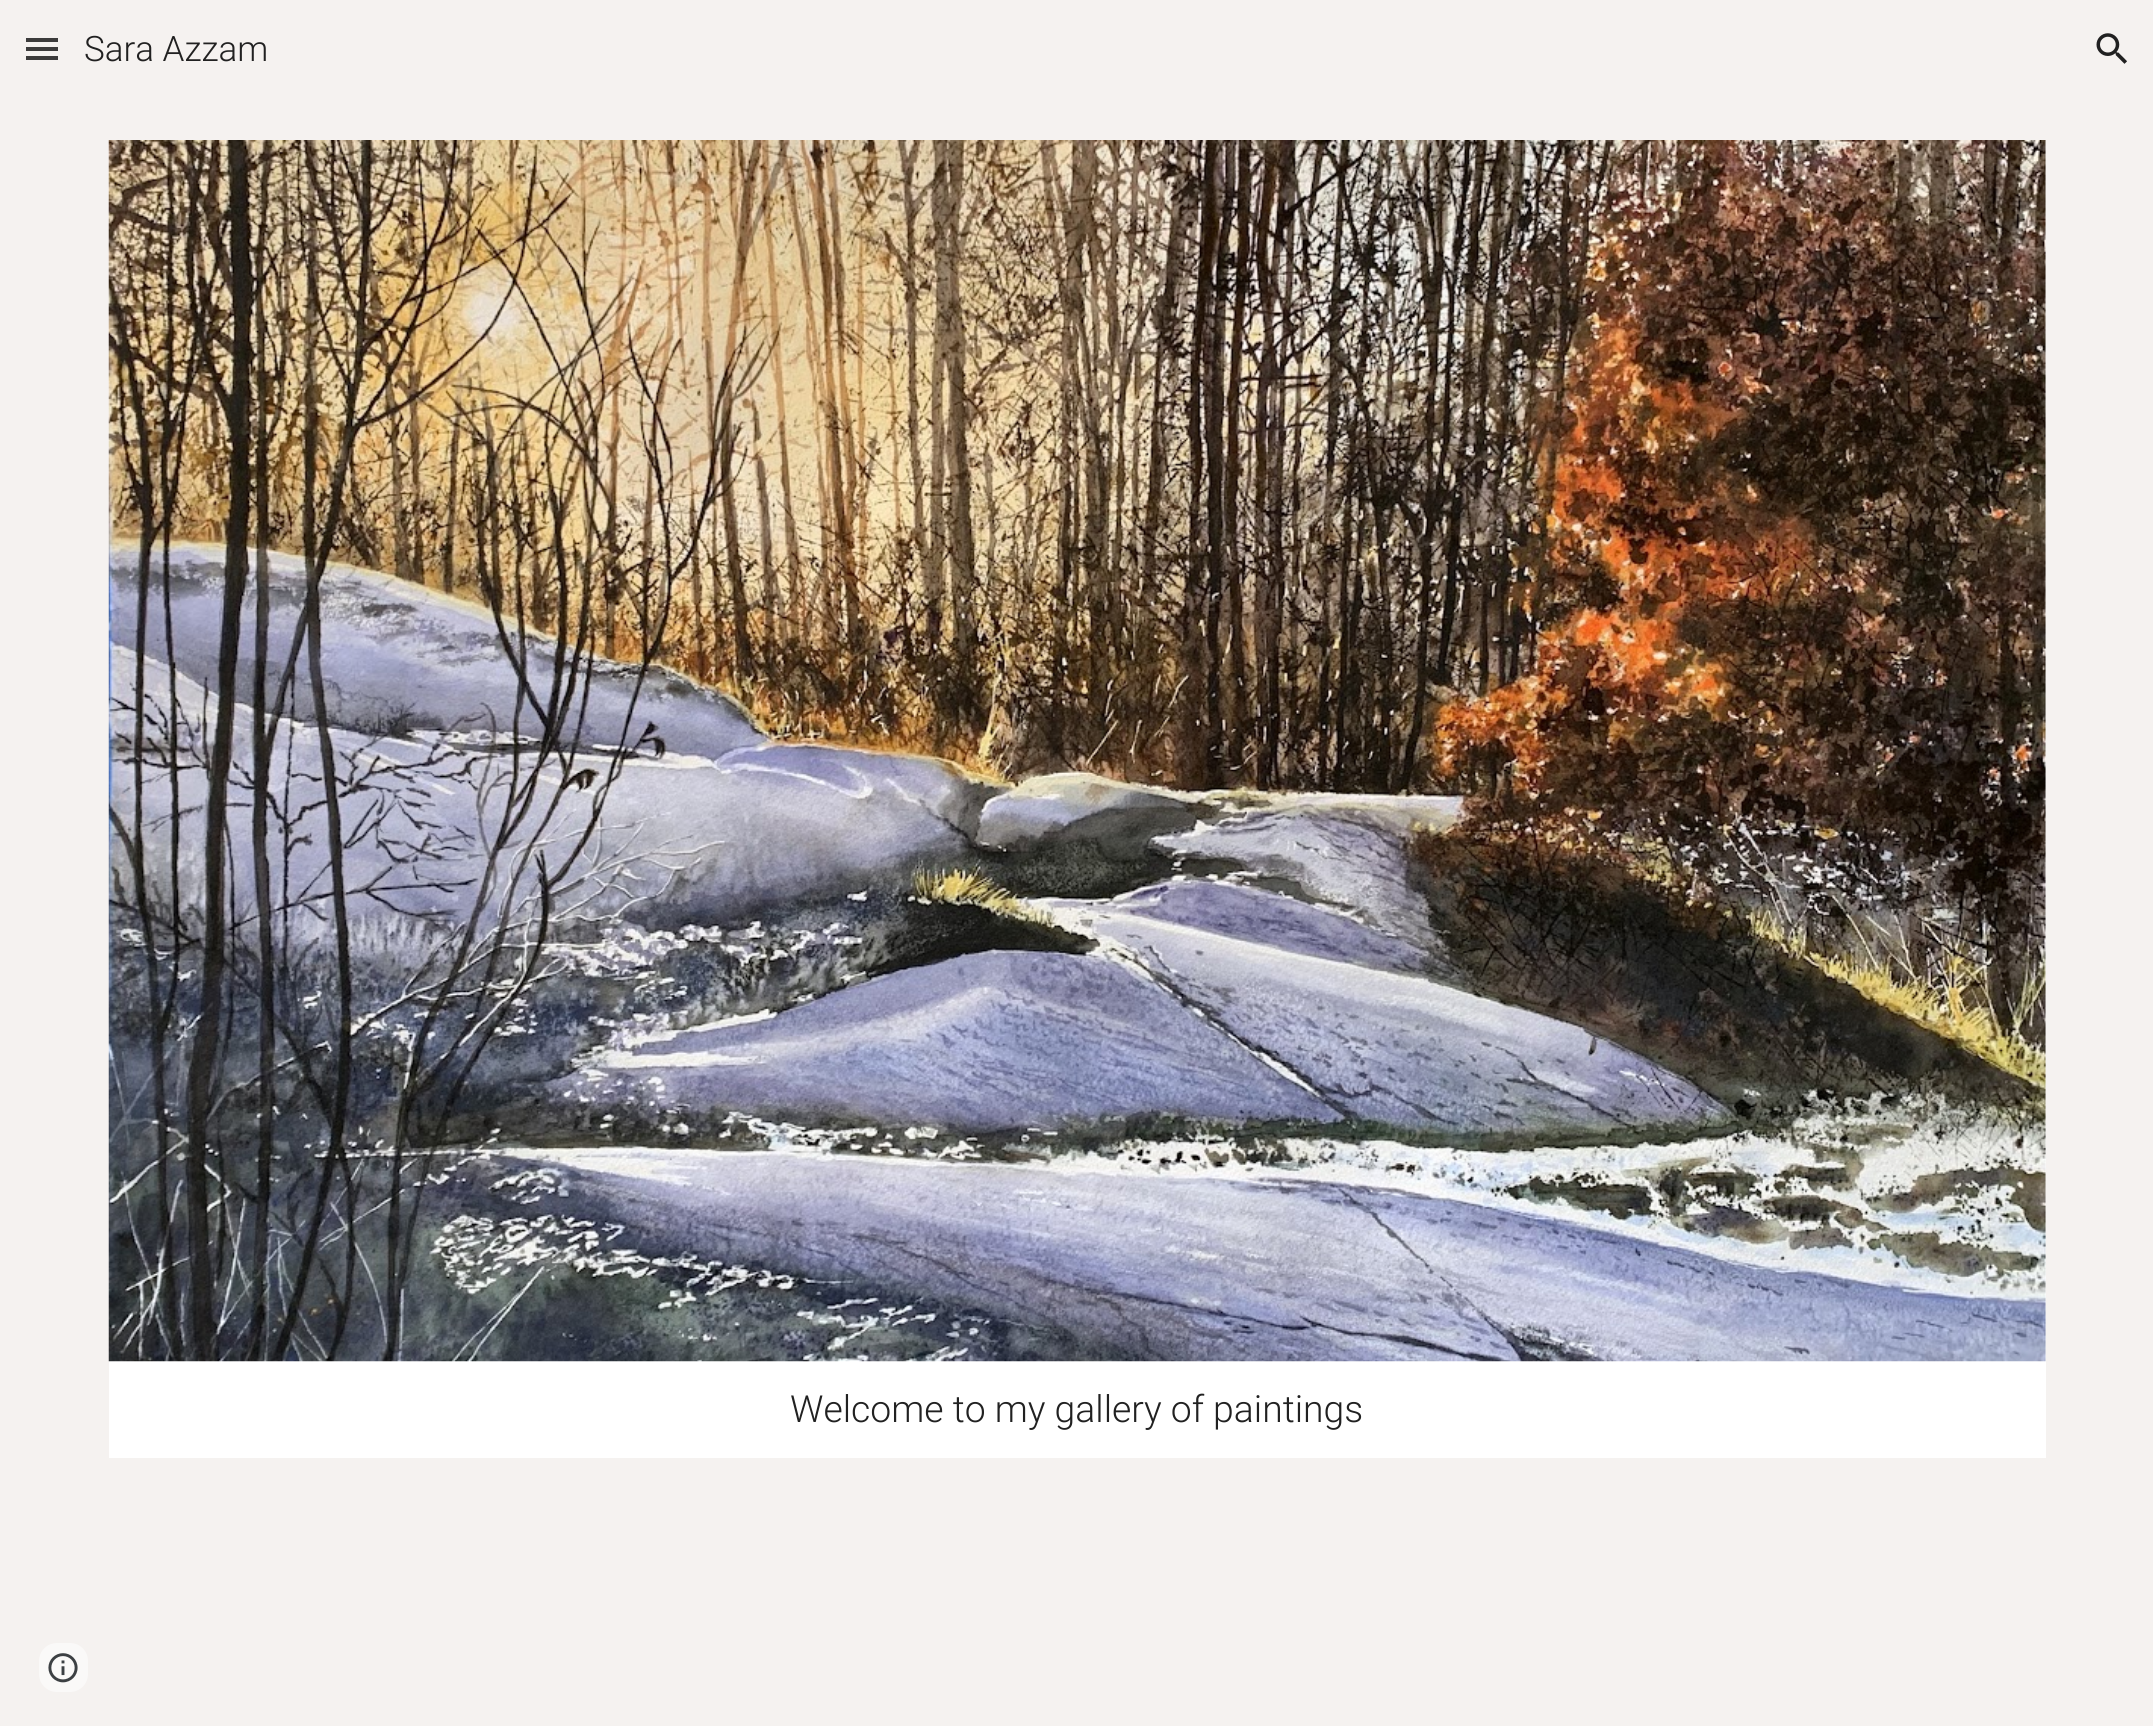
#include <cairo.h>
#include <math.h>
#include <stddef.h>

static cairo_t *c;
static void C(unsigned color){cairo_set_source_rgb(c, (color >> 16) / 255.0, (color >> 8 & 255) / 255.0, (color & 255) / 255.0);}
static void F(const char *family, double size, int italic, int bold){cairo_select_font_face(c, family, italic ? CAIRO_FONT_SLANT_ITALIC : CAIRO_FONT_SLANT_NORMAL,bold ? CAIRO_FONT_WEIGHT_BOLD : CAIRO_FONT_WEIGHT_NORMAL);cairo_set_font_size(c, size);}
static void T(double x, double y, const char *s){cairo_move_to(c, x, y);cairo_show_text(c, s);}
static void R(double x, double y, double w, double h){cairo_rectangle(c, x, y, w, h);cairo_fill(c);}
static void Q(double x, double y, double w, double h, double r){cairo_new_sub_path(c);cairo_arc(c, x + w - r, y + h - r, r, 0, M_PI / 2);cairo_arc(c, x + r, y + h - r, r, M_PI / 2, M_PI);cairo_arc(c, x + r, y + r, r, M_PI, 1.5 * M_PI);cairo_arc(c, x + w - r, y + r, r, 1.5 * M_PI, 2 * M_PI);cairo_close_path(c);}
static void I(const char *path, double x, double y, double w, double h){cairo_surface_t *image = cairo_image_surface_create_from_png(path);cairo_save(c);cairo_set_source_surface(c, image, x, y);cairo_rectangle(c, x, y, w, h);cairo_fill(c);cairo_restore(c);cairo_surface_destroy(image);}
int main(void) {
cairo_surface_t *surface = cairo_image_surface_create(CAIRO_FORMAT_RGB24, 2153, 1726);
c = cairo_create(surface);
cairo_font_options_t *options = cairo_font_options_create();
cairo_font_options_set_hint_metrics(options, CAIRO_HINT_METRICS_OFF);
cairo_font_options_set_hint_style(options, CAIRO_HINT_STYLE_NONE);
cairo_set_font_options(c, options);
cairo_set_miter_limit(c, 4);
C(0xf5f2f0);
cairo_paint(c);
C(0x3c3b3b);
R(26,38,32,4);
R(26,47,32,4);
R(26,56,32,4);
F("Roboto Light",35,0,0);
C(0x212121);
T(84,61,"Sara Azzam");
I("1.png",2096,33,31,31);
C(0xffffff);
R(109,140,1937,1318);
I("2.png",108,140,1938,1222);
F("Roboto Light",37.3,0,0);
C(0x212121);
T(790,1422,"Welcome to my gallery of paintings");
C(0xfaf9f8);
Q(39,1643,49,49,18);
cairo_fill(c);
I("3.png",48,1653,30,30);
cairo_surface_write_to_png(surface, "o.png");
cairo_font_options_destroy(options);
cairo_destroy(c);
cairo_surface_destroy(surface);
return 0;
}
